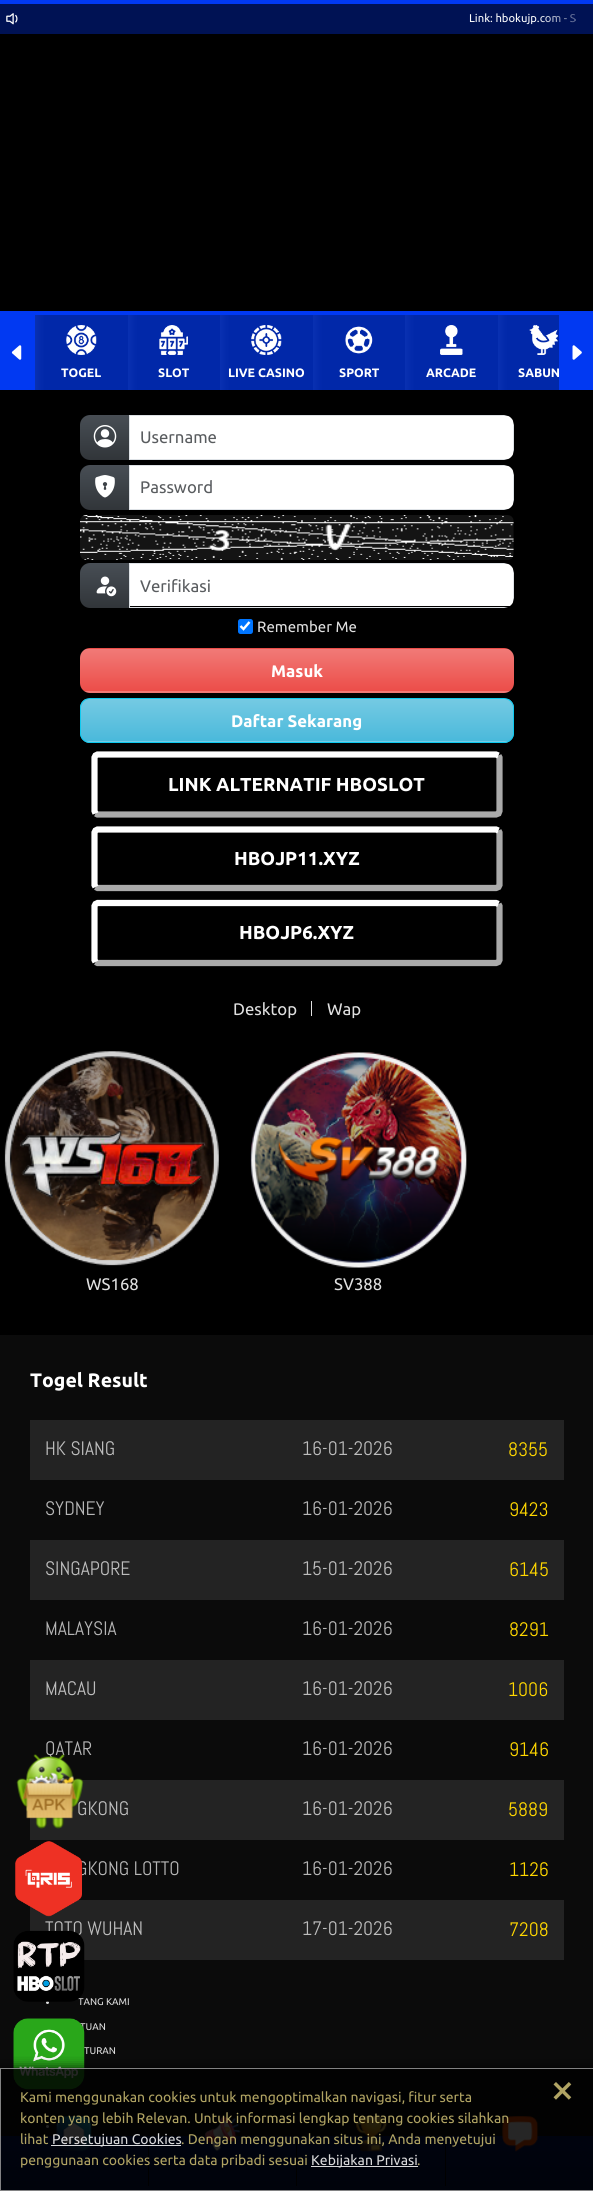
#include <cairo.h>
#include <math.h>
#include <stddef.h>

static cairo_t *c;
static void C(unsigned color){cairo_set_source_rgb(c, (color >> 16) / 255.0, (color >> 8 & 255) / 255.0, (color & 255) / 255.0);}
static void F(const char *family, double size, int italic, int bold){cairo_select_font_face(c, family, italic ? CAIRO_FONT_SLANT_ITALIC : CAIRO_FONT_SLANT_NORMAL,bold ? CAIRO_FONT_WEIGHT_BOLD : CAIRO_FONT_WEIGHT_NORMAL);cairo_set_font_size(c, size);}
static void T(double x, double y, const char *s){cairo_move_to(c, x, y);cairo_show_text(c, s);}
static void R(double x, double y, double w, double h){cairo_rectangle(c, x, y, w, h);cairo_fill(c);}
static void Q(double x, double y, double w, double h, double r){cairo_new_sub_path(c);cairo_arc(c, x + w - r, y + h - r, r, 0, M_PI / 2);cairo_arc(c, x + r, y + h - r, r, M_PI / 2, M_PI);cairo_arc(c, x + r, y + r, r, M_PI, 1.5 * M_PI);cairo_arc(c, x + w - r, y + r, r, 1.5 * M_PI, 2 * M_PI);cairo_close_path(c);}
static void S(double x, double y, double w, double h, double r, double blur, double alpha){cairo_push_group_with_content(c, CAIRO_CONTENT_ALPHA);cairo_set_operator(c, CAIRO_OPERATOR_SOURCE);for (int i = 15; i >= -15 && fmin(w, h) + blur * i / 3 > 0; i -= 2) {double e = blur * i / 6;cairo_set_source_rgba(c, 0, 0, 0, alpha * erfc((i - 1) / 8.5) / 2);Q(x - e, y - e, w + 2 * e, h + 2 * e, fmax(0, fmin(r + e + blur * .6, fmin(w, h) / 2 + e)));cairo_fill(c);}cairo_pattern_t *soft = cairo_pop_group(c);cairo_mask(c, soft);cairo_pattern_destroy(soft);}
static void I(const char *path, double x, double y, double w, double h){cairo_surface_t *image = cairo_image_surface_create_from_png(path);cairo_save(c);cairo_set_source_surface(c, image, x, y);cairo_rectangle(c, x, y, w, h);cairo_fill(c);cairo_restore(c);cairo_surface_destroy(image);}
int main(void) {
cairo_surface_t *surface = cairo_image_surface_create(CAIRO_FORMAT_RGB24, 593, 2191);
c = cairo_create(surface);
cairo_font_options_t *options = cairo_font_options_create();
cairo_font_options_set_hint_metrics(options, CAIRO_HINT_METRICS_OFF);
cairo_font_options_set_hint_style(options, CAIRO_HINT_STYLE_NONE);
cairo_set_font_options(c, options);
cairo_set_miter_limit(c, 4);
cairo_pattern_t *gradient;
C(0x000000);
cairo_paint(c);
C(0x001254);
R(0,4,593,30);
C(0x0139f2);
R(0,0,593,4);
I("1.png",6,13,12,12);
F("Ubuntu",11.25,0,0);
C(0xffffff);
T(469,22,"Link: hbokujp.com - S");
gradient = cairo_pattern_create_linear(25,19,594,19);
cairo_pattern_add_color_stop_rgba(gradient,0,0,0.071,0.329,1);
cairo_pattern_add_color_stop_rgba(gradient,.1,0,0.071,0.329,0);
cairo_pattern_add_color_stop_rgba(gradient,.9,0,0.071,0.329,0);
cairo_pattern_add_color_stop_rgba(gradient,1,0,0.071,0.329,1);
cairo_set_source(c,gradient);
cairo_pattern_destroy(gradient);
R(539,14,36,9);
C(0x0139f2);
R(0,311,593,4);
R(0,315,35,75);
I("2.png",11,345,11,15);
gradient = cairo_pattern_create_linear(35,354,128,354);
cairo_pattern_add_color_stop_rgba(gradient,0,0.035,0.188,0.694,1);
cairo_pattern_add_color_stop_rgba(gradient,.1,0.004,0.157,0.663,1);
cairo_pattern_add_color_stop_rgba(gradient,1,0.004,0.157,0.663,1);
cairo_set_source(c,gradient);
cairo_pattern_destroy(gradient);
R(35,315,93,75);
I("3.png",66,325,31,30);
F("Ubuntu",12.25,0,1);
C(0xffffff);
T(61,377,"TOGEL");
gradient = cairo_pattern_create_linear(128,354,220,354);
cairo_pattern_add_color_stop_rgba(gradient,0,0.035,0.188,0.694,1);
cairo_pattern_add_color_stop_rgba(gradient,.1,0.004,0.157,0.663,1);
cairo_pattern_add_color_stop_rgba(gradient,1,0.004,0.157,0.663,1);
cairo_set_source(c,gradient);
cairo_pattern_destroy(gradient);
R(128,315,92,75);
I("4.png",159,325,29,30);
C(0xffffff);
T(158,377,"SLOT");
gradient = cairo_pattern_create_linear(220,354,313,354);
cairo_pattern_add_color_stop_rgba(gradient,0,0.035,0.188,0.694,1);
cairo_pattern_add_color_stop_rgba(gradient,.1,0.004,0.157,0.663,1);
cairo_pattern_add_color_stop_rgba(gradient,1,0.004,0.157,0.663,1);
cairo_set_source(c,gradient);
cairo_pattern_destroy(gradient);
R(220,315,93,75);
I("5.png",251,325,31,30);
C(0xffffff);
T(228,377,"LIVE CASINO");
gradient = cairo_pattern_create_linear(313,354,405,354);
cairo_pattern_add_color_stop_rgba(gradient,0,0.035,0.188,0.694,1);
cairo_pattern_add_color_stop_rgba(gradient,.1,0.004,0.157,0.663,1);
cairo_pattern_add_color_stop_rgba(gradient,1,0.004,0.157,0.663,1);
cairo_set_source(c,gradient);
cairo_pattern_destroy(gradient);
R(313,315,92,75);
I("6.png",345,326,28,28);
C(0xffffff);
T(339,377,"SPORT");
gradient = cairo_pattern_create_linear(405,354,498,354);
cairo_pattern_add_color_stop_rgba(gradient,0,0.035,0.188,0.694,1);
cairo_pattern_add_color_stop_rgba(gradient,.1,0.004,0.157,0.663,1);
cairo_pattern_add_color_stop_rgba(gradient,1,0.004,0.157,0.663,1);
cairo_set_source(c,gradient);
cairo_pattern_destroy(gradient);
R(405,315,93,75);
I("7.png",440,325,23,30);
C(0xffffff);
T(426,377,"ARCADE");
gradient = cairo_pattern_create_linear(498,354,590,354);
cairo_pattern_add_color_stop_rgba(gradient,0,0.035,0.188,0.694,1);
cairo_pattern_add_color_stop_rgba(gradient,.1,0.004,0.157,0.663,1);
cairo_pattern_add_color_stop_rgba(gradient,1,0.004,0.157,0.663,1);
cairo_set_source(c,gradient);
cairo_pattern_destroy(gradient);
R(498,315,61,75);
I("8.png",529,325,29,30);
C(0xffffff);
T(518,377,"SABUN");
C(0x0139f2);
R(559,315,34,75);
I("9.png",572,345,10,15);
gradient = cairo_pattern_create_linear(105,415,105,460);
cairo_pattern_add_color_stop_rgba(gradient,0,0.282,0.306,0.333,1);
cairo_pattern_add_color_stop_rgba(gradient,.6,0.227,0.247,0.267,1);
cairo_pattern_add_color_stop_rgba(gradient,1,0.192,0.208,0.224,1);
cairo_set_source(c,gradient);
cairo_pattern_destroy(gradient);
cairo_new_path(c);
cairo_move_to(c,90,415);
cairo_line_to(c,130,415);
cairo_line_to(c,130,460);
cairo_line_to(c,90,460);
cairo_curve_to(c,84.5,460,80,455.5,80,450);
cairo_line_to(c,80,425);
cairo_curve_to(c,80,419.5,84.5,415,90,415);
cairo_close_path(c);
cairo_fill(c);
I("10.png",93,425,24,23);
cairo_save(c);
Q(80,415,434,45,10);
cairo_clip(c);
C(0xffffff);
cairo_new_path(c);
cairo_move_to(c,130,416);
cairo_line_to(c,510.5,416);
cairo_curve_to(c,512,416,513,417,513,418.5);
cairo_line_to(c,513,456.5);
cairo_curve_to(c,513,458,512,459,510.5,459);
cairo_line_to(c,130,459);
cairo_close_path(c);
cairo_fill(c);
cairo_restore(c);
C(0xdee2e6);
cairo_set_fill_rule(c,CAIRO_FILL_RULE_EVEN_ODD);
cairo_new_path(c);
cairo_move_to(c,129,415);
cairo_line_to(c,129,460);
cairo_line_to(c,504,460);
cairo_line_to(c,508,459);
cairo_line_to(c,130,459);
cairo_line_to(c,130,416);
cairo_line_to(c,508,416);
cairo_line_to(c,504,415);
cairo_close_path(c);
cairo_move_to(c,514,425);
cairo_line_to(c,513,421);
cairo_line_to(c,513,454);
cairo_line_to(c,514,450);
cairo_close_path(c);
cairo_fill(c);
F("Ubuntu",16.75,0,0);
C(0x595c5f);
T(140,443,"Username");
gradient = cairo_pattern_create_linear(105,465,105,510);
cairo_pattern_add_color_stop_rgba(gradient,0,0.282,0.306,0.333,1);
cairo_pattern_add_color_stop_rgba(gradient,.6,0.227,0.247,0.267,1);
cairo_pattern_add_color_stop_rgba(gradient,1,0.192,0.208,0.224,1);
cairo_set_source(c,gradient);
cairo_pattern_destroy(gradient);
cairo_new_path(c);
cairo_move_to(c,90,465);
cairo_line_to(c,130,465);
cairo_line_to(c,130,510);
cairo_line_to(c,90,510);
cairo_curve_to(c,84.5,510,80,505.5,80,500);
cairo_line_to(c,80,475);
cairo_curve_to(c,80,469.5,84.5,465,90,465);
cairo_close_path(c);
cairo_fill(c);
I("11.png",95,475,20,23);
cairo_save(c);
cairo_set_fill_rule(c,CAIRO_FILL_RULE_WINDING);
Q(80,465,434,45,10);
cairo_clip(c);
C(0xffffff);
cairo_new_path(c);
cairo_move_to(c,130,466);
cairo_line_to(c,510.5,466);
cairo_curve_to(c,512,466,513,467,513,468.5);
cairo_line_to(c,513,506.5);
cairo_curve_to(c,513,508,512,509,510.5,509);
cairo_line_to(c,130,509);
cairo_close_path(c);
cairo_fill(c);
cairo_restore(c);
C(0xdee2e6);
cairo_new_path(c);
cairo_move_to(c,129,465);
cairo_line_to(c,129,510);
cairo_line_to(c,504,510);
cairo_line_to(c,508,509);
cairo_line_to(c,130,509);
cairo_line_to(c,130,466);
cairo_line_to(c,508,466);
cairo_line_to(c,504,465);
cairo_close_path(c);
cairo_move_to(c,514,475);
cairo_line_to(c,513,471);
cairo_line_to(c,513,504);
cairo_line_to(c,514,500);
cairo_close_path(c);
cairo_fill(c);
C(0x595c5f);
T(140,493,"Password");
I("12.png",80,515,434,45);
gradient = cairo_pattern_create_linear(105,563,105,608);
cairo_pattern_add_color_stop_rgba(gradient,0,0.282,0.306,0.333,1);
cairo_pattern_add_color_stop_rgba(gradient,.6,0.227,0.247,0.267,1);
cairo_pattern_add_color_stop_rgba(gradient,1,0.192,0.208,0.224,1);
cairo_set_source(c,gradient);
cairo_pattern_destroy(gradient);
cairo_new_path(c);
cairo_move_to(c,90,563);
cairo_line_to(c,130,563);
cairo_line_to(c,130,608);
cairo_line_to(c,90,608);
cairo_curve_to(c,84.5,608,80,603.5,80,598);
cairo_line_to(c,80,573);
cairo_curve_to(c,80,567.5,84.5,563,90,563);
cairo_close_path(c);
cairo_fill(c);
I("13.png",96,576,21,21);
cairo_save(c);
cairo_set_fill_rule(c,CAIRO_FILL_RULE_WINDING);
Q(80,563,434,45,10);
cairo_clip(c);
C(0xffffff);
cairo_new_path(c);
cairo_move_to(c,130,564);
cairo_line_to(c,510.5,564);
cairo_curve_to(c,512,564,513,565,513,566.5);
cairo_line_to(c,513,603.5);
cairo_curve_to(c,513,605,512,606,510.5,606);
cairo_line_to(c,130,606);
cairo_close_path(c);
cairo_fill(c);
cairo_restore(c);
C(0xdee2e6);
cairo_new_path(c);
cairo_move_to(c,129,563);
cairo_line_to(c,129,608);
cairo_line_to(c,504,608);
cairo_line_to(c,508,607);
cairo_line_to(c,130,607);
cairo_line_to(c,130,564);
cairo_line_to(c,508,564);
cairo_line_to(c,504,563);
cairo_close_path(c);
cairo_move_to(c,514,573);
cairo_line_to(c,513,569);
cairo_line_to(c,513,602);
cairo_line_to(c,514,598);
cairo_close_path(c);
cairo_fill(c);
C(0x595c5f);
T(140,592,"Verifikasi");
C(0x0075ff);
Q(238,619,15,15,2.5);
cairo_fill(c);
cairo_new_path(c);
cairo_move_to(c,240.5,626);
cairo_line_to(c,243.5,629);
cairo_line_to(c,249.5,622);
C(0xffffff);
cairo_set_line_width(c,2.4);
cairo_stroke(c);
F("Ubuntu",15,0,0);
C(0xe0e0e0);
T(257,632,"Remember Me");
cairo_save(c);
cairo_set_fill_rule(c,CAIRO_FILL_RULE_WINDING);
Q(80,648,434,45,10);
cairo_clip(c);
gradient = cairo_pattern_create_linear(297,606,297,649);
cairo_pattern_add_color_stop_rgba(gradient,0,0.945,0.478,0.467,1);
cairo_pattern_add_color_stop_rgba(gradient,.6,0.933,0.373,0.357,1);
cairo_pattern_add_color_stop_rgba(gradient,1,0.925,0.302,0.286,1);
cairo_set_source(c,gradient);
cairo_pattern_destroy(gradient);
R(80,648,434,1);
gradient = cairo_pattern_create_linear(297,649,297,691);
cairo_pattern_add_color_stop_rgba(gradient,0,0.945,0.478,0.467,1);
cairo_pattern_add_color_stop_rgba(gradient,.6,0.933,0.373,0.357,1);
cairo_pattern_add_color_stop_rgba(gradient,1,0.925,0.302,0.286,1);
cairo_set_source(c,gradient);
cairo_pattern_destroy(gradient);
R(80,649,434,42);
gradient = cairo_pattern_create_linear(297,691,297,734);
cairo_pattern_add_color_stop_rgba(gradient,0,0.945,0.478,0.467,1);
cairo_pattern_add_color_stop_rgba(gradient,.6,0.933,0.373,0.357,1);
cairo_pattern_add_color_stop_rgba(gradient,1,0.925,0.302,0.286,1);
cairo_set_source(c,gradient);
cairo_pattern_destroy(gradient);
R(80,691,434,2);
cairo_restore(c);
F("Ubuntu",16.75,0,1);
C(0xffffff);
T(271,677,"Masuk");
cairo_save(c);
cairo_set_fill_rule(c,CAIRO_FILL_RULE_WINDING);
Q(80,698,434,45,10);
cairo_clip(c);
gradient = cairo_pattern_create_linear(297,699,297,741);
cairo_pattern_add_color_stop_rgba(gradient,0,0.455,0.792,0.89,1);
cairo_pattern_add_color_stop_rgba(gradient,.6,0.357,0.753,0.871,1);
cairo_pattern_add_color_stop_rgba(gradient,1,0.29,0.725,0.859,1);
cairo_set_source(c,gradient);
cairo_pattern_destroy(gradient);
R(80,699,434,42);
gradient = cairo_pattern_create_linear(297,741,297,784);
cairo_pattern_add_color_stop_rgba(gradient,0,0.455,0.792,0.89,1);
cairo_pattern_add_color_stop_rgba(gradient,.6,0.357,0.753,0.871,1);
cairo_pattern_add_color_stop_rgba(gradient,1,0.29,0.725,0.859,1);
cairo_set_source(c,gradient);
cairo_pattern_destroy(gradient);
R(80,741,434,2);
cairo_restore(c);
Q(80.5,698.5,433,44,9.5);
C(0x0dcaf0);
cairo_set_line_width(c,1);
cairo_stroke(c);
C(0xffffff);
T(231,727,"Daftar Sekarang");
cairo_new_path(c);
cairo_move_to(c,498.5,755.5);
cairo_line_to(c,499.5,757.5);
cairo_line_to(c,499.5,811);
cairo_line_to(c,498.5,813.5);
cairo_line_to(c,496,814.5);
cairo_line_to(c,97.5,814.5);
cairo_line_to(c,95.5,813.5);
C(0xaaaaaa);
cairo_set_line_width(c,6.2);
cairo_stroke(c);
cairo_new_path(c);
cairo_move_to(c,95.5,813.5);
cairo_line_to(c,94.5,811);
cairo_line_to(c,94.5,757.5);
cairo_line_to(c,95.5,755.5);
cairo_line_to(c,97.5,754.5);
cairo_line_to(c,496,754.5);
cairo_line_to(c,498.5,755.5);
C(0xffffff);
cairo_stroke(c);
F("Ubuntu",18.75,0,1);
T(168,791,"LINK ALTERNATIF HBOSLOT");
cairo_new_path(c);
cairo_move_to(c,498.5,830.5);
cairo_line_to(c,499.5,832.5);
cairo_line_to(c,499.5,885);
cairo_line_to(c,498.5,887);
cairo_line_to(c,496,888);
cairo_line_to(c,97.5,888);
cairo_line_to(c,95.5,887);
C(0xaaaaaa);
cairo_stroke(c);
cairo_new_path(c);
cairo_move_to(c,95.5,887);
cairo_line_to(c,94.5,885);
cairo_line_to(c,94.5,832.5);
cairo_line_to(c,95.5,830.5);
cairo_line_to(c,97.5,829.5);
cairo_line_to(c,496,829.5);
cairo_line_to(c,498.5,830.5);
C(0xffffff);
cairo_stroke(c);
T(234,865,"HBOJP11.XYZ");
cairo_new_path(c);
cairo_move_to(c,498.5,904);
cairo_line_to(c,499.5,906);
cairo_line_to(c,499.5,960);
cairo_line_to(c,498.5,962);
cairo_line_to(c,496,963);
cairo_line_to(c,97.5,963);
cairo_line_to(c,95.5,962);
C(0xaaaaaa);
cairo_stroke(c);
cairo_new_path(c);
cairo_move_to(c,95.5,962);
cairo_line_to(c,94.5,960);
cairo_line_to(c,94.5,906);
cairo_line_to(c,95.5,904);
cairo_line_to(c,97.5,903);
cairo_line_to(c,496,903);
cairo_line_to(c,498.5,904);
C(0xffffff);
cairo_stroke(c);
T(239,939,"HBOJP6.XYZ");
F("Ubuntu",16.75,0,0);
C(0xe0e0e0);
T(233,1015,"Desktop");
R(311,1001,1,15);
T(327,1015,"Wap");
I("14.png",4,1051,215,215);
T(86,1290,"WS168");
I("15.png",250,1052,217,216);
T(334,1290,"SV388");
C(0x0b0b0b);
R(0,1335,593,801);
F("Ubuntu",19.5,0,1);
C(0xffffff);
T(30,1387,"Togel Result");
C(0x232323);
R(30,1420,534,60);
F("Abel",19.5,0,0);
C(0xbdbdbd);
T(45,1455,"HK SIANG");
T(302,1455,"16-01-2026");
C(0xffd700);
T(508,1456,"8355");
C(0xb6b6b6);
T(45,1515,"SYDNEY");
T(302,1515,"16-01-2026");
C(0xffd700);
T(509,1516,"9423");
C(0x232323);
R(30,1540,534,60);
C(0xbdbdbd);
T(45,1575,"SINGAPORE");
T(302,1575,"15-01-2026");
C(0xffd700);
T(509,1576,"6145");
C(0xb6b6b6);
T(45,1635,"MALAYSIA");
T(302,1635,"16-01-2026");
C(0xffd700);
T(509,1636,"8291");
C(0x232323);
R(30,1660,534,60);
C(0xbdbdbd);
T(45,1695,"MACAU");
T(302,1695,"16-01-2026");
C(0xffd700);
T(508,1696,"1006");
C(0xb6b6b6);
T(45,1755,"QATAR");
T(302,1755,"16-01-2026");
C(0xffd700);
T(509,1756,"9146");
C(0x232323);
R(30,1780,534,60);
C(0xbdbdbd);
T(77,1815,"GKONG");
T(302,1815,"16-01-2026");
C(0xffd700);
T(508,1816,"5889");
C(0xb6b6b6);
T(77,1875,"GKONG LOTTO");
T(302,1875,"16-01-2026");
C(0xffd700);
T(509,1876,"1126");
C(0x232323);
R(30,1900,534,60);
C(0xbdbdbd);
T(45,1935,"TOTO WUHAN");
T(302,1935,"17-01-2026");
C(0xffd700);
T(509,1936,"7208");
I("16.png",16,1754,68,75);
I("17.png",15,1841,67,76);
C(0xe0e0e0);
cairo_arc(c,47.5,2002.5,1.5,0,2 * M_PI);
cairo_fill(c);
F("Ubuntu",9.75,0,0);
T(78,2005,"TANG KAMI");
I("18.png",13,1930,72,72);
T(80,2030,"TUAN");
T(84,2054,"TURAN");
I("19.png",13,2018,72,72);
cairo_arc(c,47.5,2101.5,1.5,0,2 * M_PI);
cairo_fill(c);
cairo_arc(c,47.5,2126.5,1.5,0,2 * M_PI);
cairo_fill(c);
gradient = cairo_pattern_create_linear(297,2191,297,2136);
cairo_pattern_add_color_stop_rgba(gradient,0,0,0.067,0.286,1);
cairo_pattern_add_color_stop_rgba(gradient,1,0,0.09,0.38,1);
cairo_set_source(c,gradient);
cairo_pattern_destroy(gradient);
R(0,2136,593,55);
I("20.png",56,2116,36,36);
I("21.png",204,2116,37,36);
I("22.png",355,2116,33,36);
I("23.png",502,2116,37,36);
C(0x000000);
R(148,2141,1,45);
R(296,2141,1,45);
R(445,2141,1,45);
cairo_save(c);
cairo_set_fill_rule(c,CAIRO_FILL_RULE_WINDING);
cairo_rectangle(c,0,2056,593,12);
cairo_clip(c);
C(0x000000);
S(0,2068,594,123,0,6,.85);
cairo_restore(c);
cairo_set_source_rgba(c,0,0,0,0.85);
R(0,2068,593,123);
cairo_rectangle(c,.5,2068.5,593,122);
cairo_set_source_rgba(c,0.6,0.6,0.6,0.85);
cairo_set_line_width(c,1);
cairo_stroke(c);
F("Ubuntu",14,0,0);
C(0xb1a463);
T(20,2102,"Kami menggunakan cookies untuk mengoptimalkan navigasi, fitur serta");
T(20,2123,"konten yang lebih Relevan. Untuk informasi lengkap tentang cookies silahkan");
T(20,2144,"lihat");
cairo_set_source_rgba(c,1,1,1,0.85);
R(51,2145,130,1);
C(0xdadadb);
T(52,2144,"Persetujuan Cookies");
C(0xb1a463);
T(181,2144,". Dengan menggunakan situs ini, Anda menyetujui");
T(20,2165,"penggunaan cookies serta data pribadi sesuai");
cairo_set_source_rgba(c,1,1,1,0.85);
R(311,2166,107,1);
C(0xdadadb);
T(311,2165,"Kebijakan Privasi");
C(0xb1a66f);
T(417,2165,".");
F("Ubuntu",44,0,0);
C(0xb1a463);
T(550,2104,"×");
cairo_surface_write_to_png(surface, "o.png");
cairo_font_options_destroy(options);
cairo_destroy(c);
cairo_surface_destroy(surface);
return 0;
}
